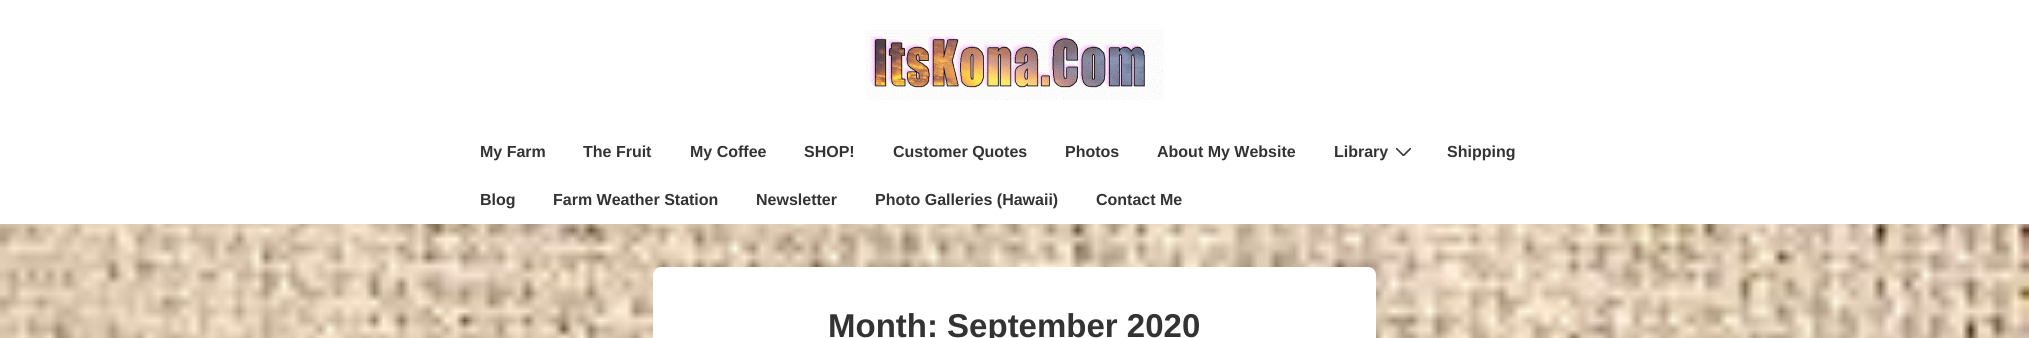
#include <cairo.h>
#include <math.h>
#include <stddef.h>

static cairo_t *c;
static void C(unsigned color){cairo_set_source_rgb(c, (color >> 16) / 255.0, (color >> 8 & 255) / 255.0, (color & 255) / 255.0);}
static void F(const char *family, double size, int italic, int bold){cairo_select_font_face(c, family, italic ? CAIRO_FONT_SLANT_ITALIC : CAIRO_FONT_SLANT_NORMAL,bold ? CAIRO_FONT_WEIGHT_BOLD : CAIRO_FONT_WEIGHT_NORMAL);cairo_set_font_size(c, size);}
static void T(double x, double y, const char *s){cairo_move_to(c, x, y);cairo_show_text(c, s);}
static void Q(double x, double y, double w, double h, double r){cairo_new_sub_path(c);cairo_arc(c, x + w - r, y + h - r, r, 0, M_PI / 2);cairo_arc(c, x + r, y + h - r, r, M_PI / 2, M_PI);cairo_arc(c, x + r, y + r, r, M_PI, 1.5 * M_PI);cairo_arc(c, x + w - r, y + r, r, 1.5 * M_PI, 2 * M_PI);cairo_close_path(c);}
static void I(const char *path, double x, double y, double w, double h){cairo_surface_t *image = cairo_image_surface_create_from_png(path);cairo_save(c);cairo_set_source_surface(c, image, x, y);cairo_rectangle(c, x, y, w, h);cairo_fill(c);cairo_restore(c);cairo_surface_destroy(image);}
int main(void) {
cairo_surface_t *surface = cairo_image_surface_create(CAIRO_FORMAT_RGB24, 2029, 338);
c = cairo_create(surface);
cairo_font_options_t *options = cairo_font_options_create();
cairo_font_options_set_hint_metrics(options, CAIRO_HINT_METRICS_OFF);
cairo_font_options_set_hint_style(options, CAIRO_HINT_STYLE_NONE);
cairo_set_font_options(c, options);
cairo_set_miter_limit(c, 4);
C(0xffffff);
cairo_paint(c);
I("1.png",0,224,2029,114);
I("2.png",866,30,298,70);
F("Liberation Sans",16,0,1);
C(0x333333);
T(480,157,"My Farm");
T(583,157,"The Fruit");
T(690,157,"My Coffee");
T(804,157,"SHOP!");
T(893,157,"Customer Quotes");
T(1065,157,"Photos");
T(1157,157,"About My Website");
T(1334,157,"Library");
cairo_save(c);
cairo_rectangle(c,1396,148,15,8);
cairo_clip(c);
cairo_new_path(c);
cairo_move_to(c,1396.5,148.5);
cairo_line_to(c,1403.5,155.5);
cairo_line_to(c,1410.5,148.5);
cairo_set_line_width(c,1.6);
cairo_set_line_cap(c,CAIRO_LINE_CAP_ROUND);
cairo_stroke(c);
cairo_restore(c);
T(1447,157,"Shipping");
T(480,205,"Blog");
T(553,205,"Farm Weather Station");
T(756,205,"Newsletter");
T(875,205,"Photo Galleries (Hawaii)");
T(1096,205,"Contact Me");
C(0xffffff);
Q(653,267,723,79,8);
cairo_fill(c);
F("Liberation Sans",33,0,1);
C(0x333333);
T(828,337,"Month: September 2020");
cairo_surface_write_to_png(surface, "o.png");
cairo_font_options_destroy(options);
cairo_destroy(c);
cairo_surface_destroy(surface);
return 0;
}
